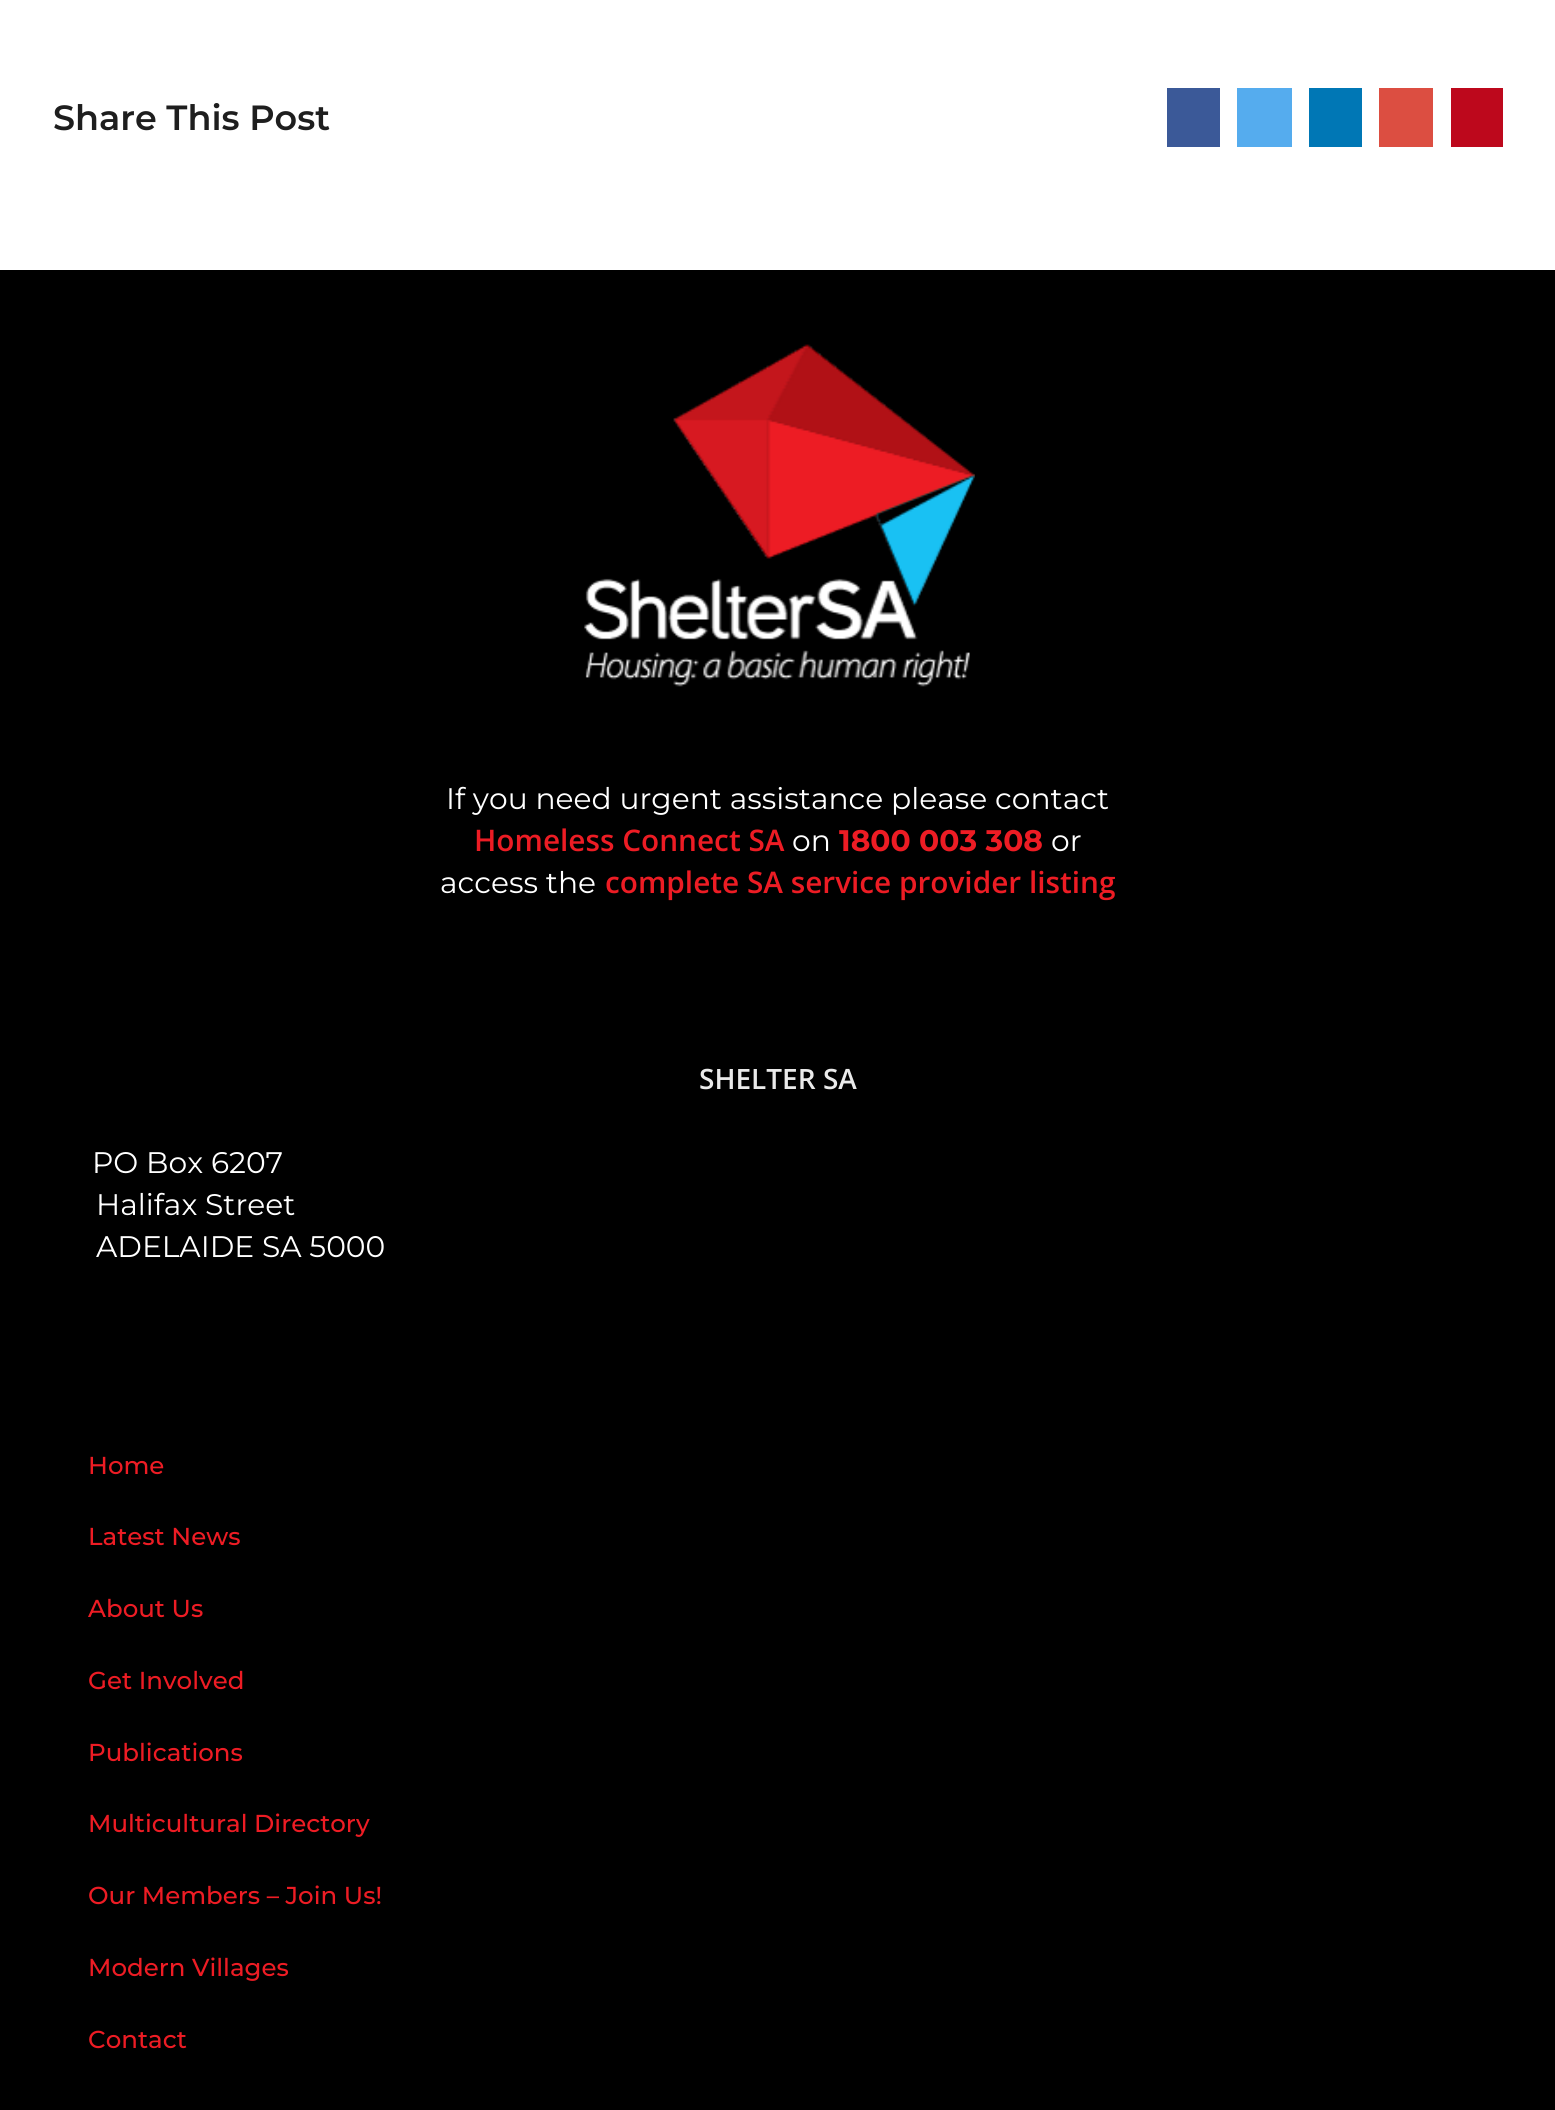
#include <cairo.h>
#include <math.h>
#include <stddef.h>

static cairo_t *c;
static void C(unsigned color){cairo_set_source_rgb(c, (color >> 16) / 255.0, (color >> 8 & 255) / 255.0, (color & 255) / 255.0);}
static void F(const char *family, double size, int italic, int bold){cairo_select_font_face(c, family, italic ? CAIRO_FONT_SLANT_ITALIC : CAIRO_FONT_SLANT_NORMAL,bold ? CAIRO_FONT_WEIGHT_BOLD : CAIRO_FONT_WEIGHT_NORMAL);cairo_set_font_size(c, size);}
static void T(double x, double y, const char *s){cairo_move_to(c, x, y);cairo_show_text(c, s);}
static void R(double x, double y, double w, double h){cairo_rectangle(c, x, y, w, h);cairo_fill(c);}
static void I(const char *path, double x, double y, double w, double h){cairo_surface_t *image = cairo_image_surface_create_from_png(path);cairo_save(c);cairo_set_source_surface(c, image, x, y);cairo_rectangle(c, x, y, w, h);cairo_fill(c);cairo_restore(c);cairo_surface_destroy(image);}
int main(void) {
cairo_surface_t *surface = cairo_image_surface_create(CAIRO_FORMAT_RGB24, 1555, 2110);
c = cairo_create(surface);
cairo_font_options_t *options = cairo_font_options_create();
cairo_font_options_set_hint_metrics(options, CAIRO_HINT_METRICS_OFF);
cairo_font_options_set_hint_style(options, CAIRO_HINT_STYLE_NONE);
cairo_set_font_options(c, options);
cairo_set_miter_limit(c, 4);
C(0xffffff);
cairo_paint(c);
F("Montserrat Thin",35,0,0);
C(0x1e1e1e);
T(53,130,"Share This Post");
C(0x3b5998);
R(1167,88,53,59);
C(0x55acee);
R(1237,88,55,59);
C(0x0077b5);
R(1309,88,53,59);
C(0xdc4e41);
R(1379,88,54,59);
C(0xbd081c);
R(1451,88,52,59);
C(0x000000);
R(0,270,1555,1840);
I("1.png",584,344,391,343);
F("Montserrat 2 Thin",29.75,0,0);
C(0xffffff);
T(446,809,"If you need urgent assistance please contact");
F("Open Sans SemiBold",29.75,0,0);
C(0xed1c24);
T(474,851,"Homeless Connect SA");
F("Montserrat 2 Thin",29.75,0,0);
C(0xffffff);
T(792,851,"on");
F("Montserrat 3 Thin",29.75,0,0);
C(0xed1c24);
T(839,851,"1800 003 308");
F("Montserrat 2 Thin",29.75,0,0);
C(0xffffff);
T(1051,851,"or");
T(440,893,"access the");
F("Open Sans SemiBold",29.75,0,0);
C(0xed1c24);
T(605,893,"complete SA service provider listing");
F("Open Sans SemiBold",28,0,0);
C(0xeaeaea);
T(699,1089,"SHELTER SA");
F("Montserrat 2 Thin",29.75,0,0);
C(0xffffff);
T(92,1173,"PO Box 6207");
T(96,1215,"Halifax Street");
T(96,1257,"ADELAIDE SA 5000");
F("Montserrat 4 Thin",24.5,0,0);
C(0xed1c24);
T(88,1474,"Home");
T(88,1545,"Latest News");
T(88,1617,"About Us");
T(88,1689,"Get Involved");
T(88,1761,"Publications");
T(88,1832,"Multicultural Directory");
T(88,1904,"Our Members – Join Us!");
T(88,1976,"Modern Villages");
T(88,2048,"Contact");
cairo_surface_write_to_png(surface, "o.png");
cairo_font_options_destroy(options);
cairo_destroy(c);
cairo_surface_destroy(surface);
return 0;
}
